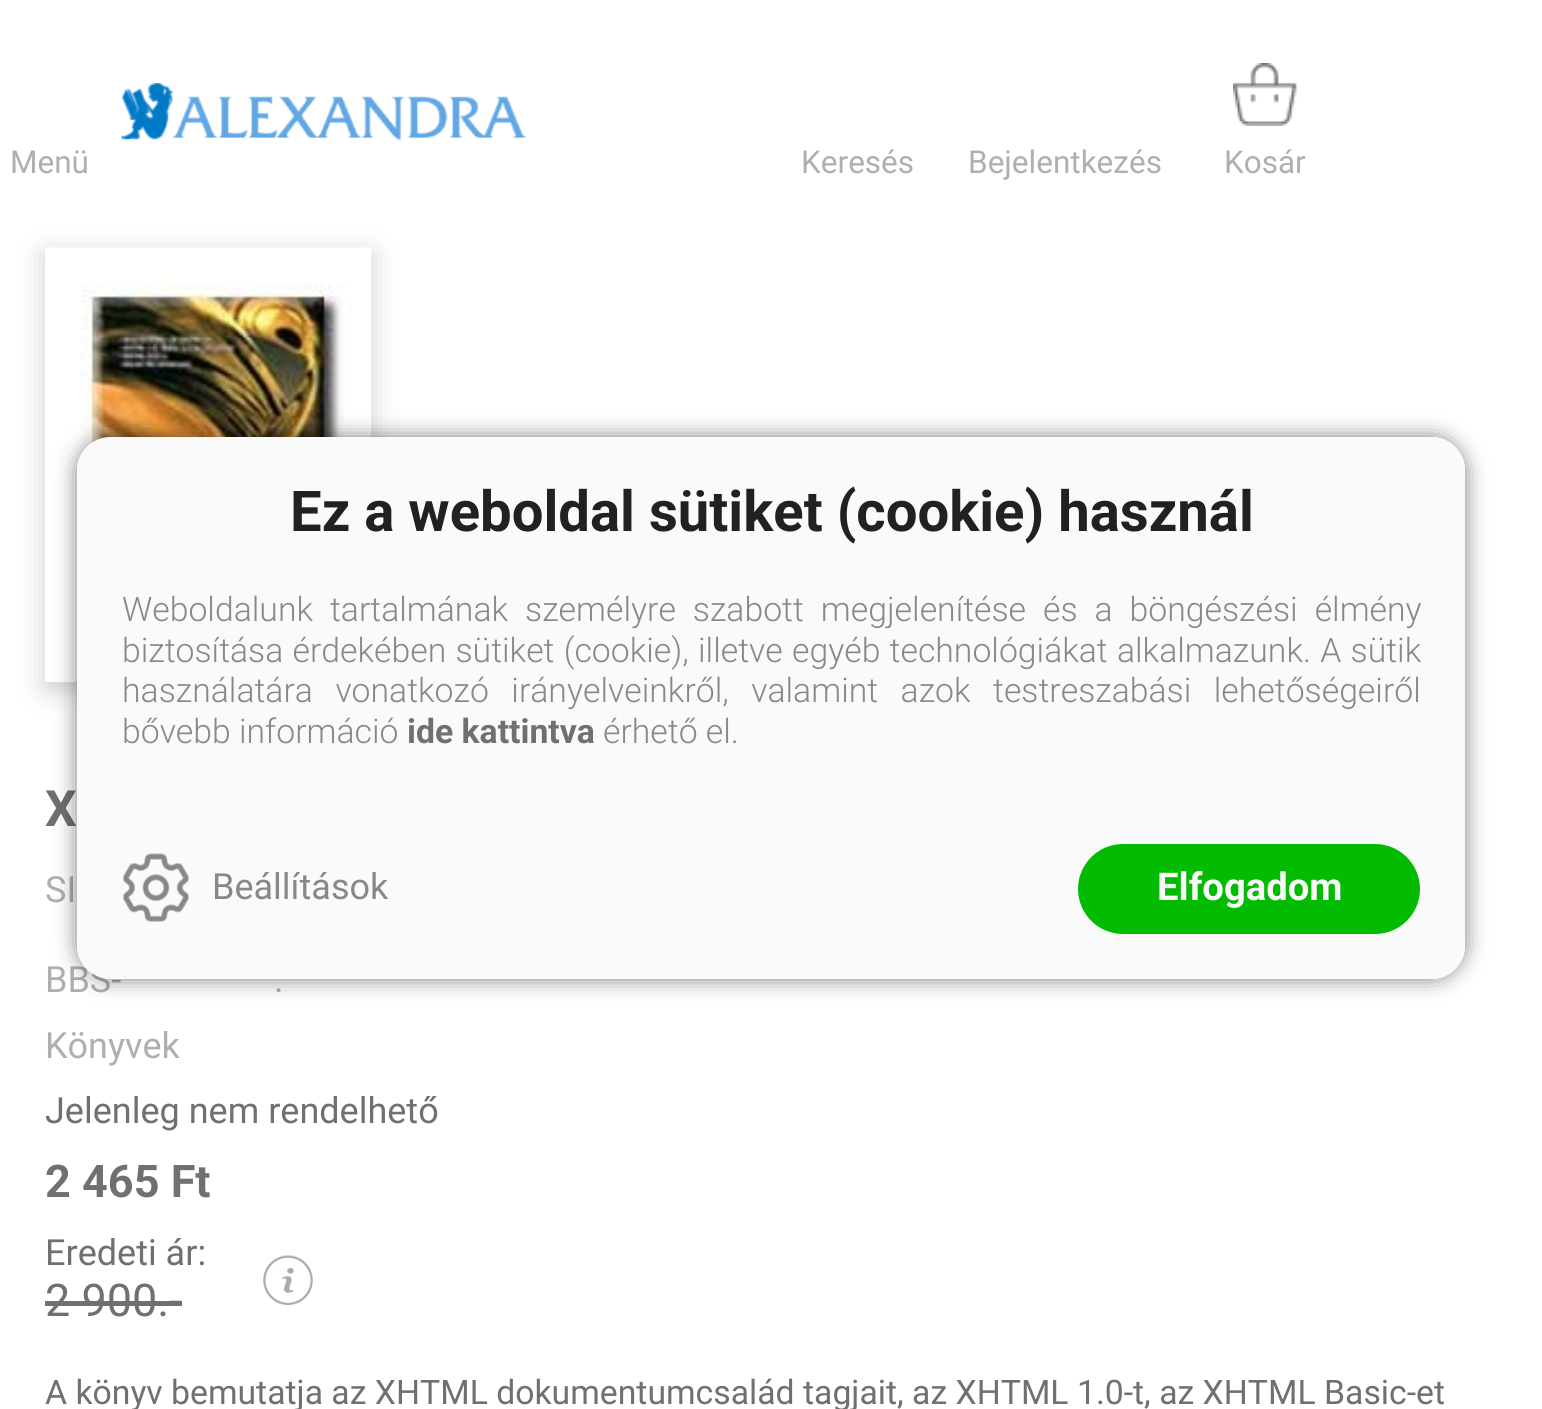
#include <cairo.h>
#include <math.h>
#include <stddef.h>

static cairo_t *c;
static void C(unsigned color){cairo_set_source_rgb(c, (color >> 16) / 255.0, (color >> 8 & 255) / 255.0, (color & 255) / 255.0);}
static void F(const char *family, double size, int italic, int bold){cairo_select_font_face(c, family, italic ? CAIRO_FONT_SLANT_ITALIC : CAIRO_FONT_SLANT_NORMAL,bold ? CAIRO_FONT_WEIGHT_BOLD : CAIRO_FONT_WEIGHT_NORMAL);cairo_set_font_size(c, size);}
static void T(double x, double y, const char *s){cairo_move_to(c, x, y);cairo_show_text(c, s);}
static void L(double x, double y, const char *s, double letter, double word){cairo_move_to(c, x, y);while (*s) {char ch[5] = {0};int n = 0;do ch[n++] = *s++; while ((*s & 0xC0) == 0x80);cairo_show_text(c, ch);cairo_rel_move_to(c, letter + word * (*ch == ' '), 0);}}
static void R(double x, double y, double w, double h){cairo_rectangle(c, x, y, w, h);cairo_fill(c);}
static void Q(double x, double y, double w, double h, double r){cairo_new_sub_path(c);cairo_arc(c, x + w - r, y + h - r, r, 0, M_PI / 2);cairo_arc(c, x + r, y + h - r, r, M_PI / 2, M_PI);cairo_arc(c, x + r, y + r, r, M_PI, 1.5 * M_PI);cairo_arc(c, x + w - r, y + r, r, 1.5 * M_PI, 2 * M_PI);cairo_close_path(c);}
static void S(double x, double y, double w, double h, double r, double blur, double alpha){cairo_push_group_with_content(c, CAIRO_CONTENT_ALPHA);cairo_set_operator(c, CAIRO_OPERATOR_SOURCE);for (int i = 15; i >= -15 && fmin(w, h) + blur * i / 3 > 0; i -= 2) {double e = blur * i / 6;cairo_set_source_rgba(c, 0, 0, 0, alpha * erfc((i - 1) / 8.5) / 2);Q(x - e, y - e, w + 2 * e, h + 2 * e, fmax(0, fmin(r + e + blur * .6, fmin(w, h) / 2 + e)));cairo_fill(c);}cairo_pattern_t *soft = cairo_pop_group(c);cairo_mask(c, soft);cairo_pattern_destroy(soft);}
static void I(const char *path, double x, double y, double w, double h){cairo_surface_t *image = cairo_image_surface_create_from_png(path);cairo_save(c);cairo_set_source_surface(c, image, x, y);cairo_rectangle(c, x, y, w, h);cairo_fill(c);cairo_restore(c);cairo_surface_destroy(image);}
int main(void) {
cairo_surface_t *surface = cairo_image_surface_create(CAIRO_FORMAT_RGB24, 1542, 1409);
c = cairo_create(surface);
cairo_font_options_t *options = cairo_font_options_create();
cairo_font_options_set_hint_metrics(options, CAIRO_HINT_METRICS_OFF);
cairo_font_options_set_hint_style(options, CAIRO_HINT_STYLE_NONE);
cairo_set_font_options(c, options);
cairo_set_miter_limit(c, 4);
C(0xffffff);
cairo_paint(c);
I("1.png",121,83,406,58);
F("Roboto",31.5,0,0);
C(0xafafaf);
T(10,173,"Menü");
T(801,173,"Keresés");
T(968,173,"Bejelentkezés");
I("2.png",1233,63,64,63);
T(1224,173,"Kosár");
cairo_save(c);
cairo_set_fill_rule(c,CAIRO_FILL_RULE_EVEN_ODD);
cairo_new_path(c);
cairo_move_to(c,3,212);
cairo_line_to(c,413,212);
cairo_line_to(c,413,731);
cairo_line_to(c,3,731);
cairo_close_path(c);
cairo_move_to(c,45,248);
cairo_line_to(c,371,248);
cairo_line_to(c,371,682);
cairo_line_to(c,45,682);
cairo_close_path(c);
cairo_clip(c);
C(0x000000);
S(45,254,326,435,0,13.5,.2);
cairo_restore(c);
I("3.png",48,247,324,435);
F("Roboto",50,0,1);
C(0x707070);
T(45,826,"X");
F("Roboto",36,0,0);
C(0xafafaf);
T(45,902,"SI");
T(45,992,"BBS-");
T(274,992,".");
T(45,1058,"Könyvek");
C(0x707070);
T(45,1123,"Jelenleg nem rendelhető");
F("Roboto",45,0,1);
T(45,1197,"2 465 Ft");
F("Roboto",36,0,0);
T(45,1265,"Eredeti ár:");
F("Roboto",45,0,0);
T(45,1316,"2 900.-");
R(45,1301,137,5);
I("4.png",263,1255,50,50);
F("Roboto",33.75,0,0);
T(45,1404,"A könyv bemutatja az XHTML dokumentumcsalád tagjait, az XHTML 1.0-t, az XHTML Basic-et");
cairo_save(c);
cairo_set_fill_rule(c,CAIRO_FILL_RULE_EVEN_ODD);
cairo_new_path(c);
cairo_move_to(c,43,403);
cairo_line_to(c,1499,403);
cairo_line_to(c,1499,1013);
cairo_line_to(c,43,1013);
cairo_close_path(c);
cairo_move_to(c,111,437);
cairo_line_to(c,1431,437);
cairo_curve_to(c,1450,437,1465,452,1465,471);
cairo_line_to(c,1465,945);
cairo_curve_to(c,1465,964,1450,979,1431,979);
cairo_line_to(c,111,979);
cairo_curve_to(c,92,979,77,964,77,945);
cairo_line_to(c,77,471);
cairo_curve_to(c,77,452,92,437,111,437);
cairo_close_path(c);
cairo_clip(c);
C(0x000000);
S(77,437,1388,542,34,11,.5);
cairo_restore(c);
C(0xfafafa);
Q(77,437,1388,542,34);
cairo_fill(c);
F("Roboto",56.25,0,1);
C(0x212121);
T(290,531,"Ez a weboldal sütiket (cookie) használ");
F("Roboto Light",33.75,0,0);
C(0x888888);
L(122,621,"Weboldalunk tartalmának személyre szabott megjelenítése és a böngészési élmény",0,8.75);
L(122,662,"biztosítása érdekében sütiket (cookie), illetve egyéb technológiákat alkalmazunk. A sütik",0,1);
L(122,702,"használatára vonatkozó irányelveinkről, valamint azok testreszabási lehetőségeiről",0,14.25);
T(122,743,"bővebb információ");
F("Roboto",33.75,0,1);
C(0x707070);
T(407,743,"ide kattintva");
F("Roboto Light",33.75,0,0);
C(0x888888);
T(603,743,"érhető el.");
I("5.png",123,853,66,69);
F("Roboto",36,0,0);
T(212,899,"Beállítások");
C(0x02bb02);
Q(1078,844,342,90,45);
cairo_fill(c);
F("Roboto",38.25,0,1);
C(0xfafafa);
T(1157,900,"Elfogadom");
cairo_surface_write_to_png(surface, "o.png");
cairo_font_options_destroy(options);
cairo_destroy(c);
cairo_surface_destroy(surface);
return 0;
}
